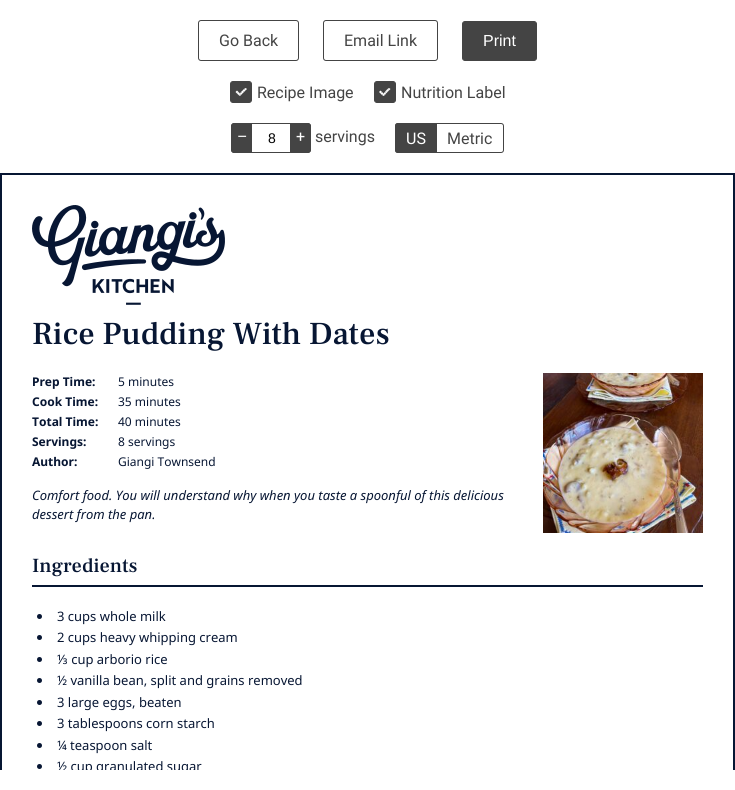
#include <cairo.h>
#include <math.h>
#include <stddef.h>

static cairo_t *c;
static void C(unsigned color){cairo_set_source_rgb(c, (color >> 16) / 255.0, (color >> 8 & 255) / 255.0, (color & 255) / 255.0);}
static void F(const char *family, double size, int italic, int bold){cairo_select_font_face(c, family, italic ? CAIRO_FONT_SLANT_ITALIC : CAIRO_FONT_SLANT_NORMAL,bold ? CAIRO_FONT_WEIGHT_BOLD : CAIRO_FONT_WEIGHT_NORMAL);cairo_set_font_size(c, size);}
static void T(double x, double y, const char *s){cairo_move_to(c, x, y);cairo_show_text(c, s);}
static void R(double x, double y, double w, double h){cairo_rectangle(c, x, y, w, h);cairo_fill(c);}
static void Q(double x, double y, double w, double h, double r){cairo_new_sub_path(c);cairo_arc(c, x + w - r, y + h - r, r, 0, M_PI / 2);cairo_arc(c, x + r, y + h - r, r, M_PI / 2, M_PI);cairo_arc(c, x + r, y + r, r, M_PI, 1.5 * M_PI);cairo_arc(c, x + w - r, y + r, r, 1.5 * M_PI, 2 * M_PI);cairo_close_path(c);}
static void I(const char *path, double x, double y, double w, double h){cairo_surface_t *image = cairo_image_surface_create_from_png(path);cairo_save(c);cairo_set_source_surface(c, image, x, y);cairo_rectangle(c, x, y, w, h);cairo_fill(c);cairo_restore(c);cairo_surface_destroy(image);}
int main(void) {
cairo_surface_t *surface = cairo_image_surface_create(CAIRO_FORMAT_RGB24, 735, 790);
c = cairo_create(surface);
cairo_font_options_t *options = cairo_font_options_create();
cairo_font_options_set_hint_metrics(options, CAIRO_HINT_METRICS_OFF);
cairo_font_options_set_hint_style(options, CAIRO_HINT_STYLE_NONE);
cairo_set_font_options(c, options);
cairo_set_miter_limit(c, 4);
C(0xffffff);
cairo_paint(c);
Q(198.5,20.5,100,40,2.5);
C(0x444444);
cairo_set_line_width(c,1);
cairo_stroke(c);
F("Roboto",16,0,0);
T(219,46,"Go Back");
Q(323.5,20.5,114,40,2.5);
cairo_stroke(c);
T(344,46,"Email Link");
Q(462.5,21.5,74,39,2.5);
cairo_fill_preserve(c);
cairo_stroke(c);
F("Liberation Sans",16,0,0);
C(0xffffff);
T(483,46,"Print");
C(0x444444);
Q(230.5,81.5,21,21,2.5);
cairo_fill_preserve(c);
cairo_stroke(c);
F("Roboto",16,0,0);
T(257,98,"Recipe Image");
C(0xffffff);
cairo_new_path(c);
cairo_move_to(c,245.5,88);
cairo_line_to(c,247,89);
cairo_line_to(c,245.5,90.5);
cairo_line_to(c,244,89);
cairo_close_path(c);
cairo_fill(c);
cairo_new_path(c);
cairo_move_to(c,244,89);
cairo_line_to(c,245.5,90.5);
cairo_line_to(c,244,92);
cairo_line_to(c,242.5,90.5);
cairo_close_path(c);
cairo_fill(c);
cairo_new_path(c);
cairo_move_to(c,242.5,90.5);
cairo_line_to(c,244,92);
cairo_line_to(c,242.5,93.5);
cairo_line_to(c,241,92);
cairo_close_path(c);
cairo_fill(c);
cairo_new_path(c);
cairo_move_to(c,241,92);
cairo_line_to(c,242.5,93.5);
cairo_line_to(c,241,95);
cairo_line_to(c,240,93.5);
cairo_close_path(c);
cairo_fill(c);
cairo_new_path(c);
cairo_move_to(c,240,93.5);
cairo_line_to(c,241,95);
cairo_line_to(c,240,96);
cairo_line_to(c,238.5,95);
cairo_close_path(c);
cairo_fill(c);
cairo_new_path(c);
cairo_move_to(c,238.5,92);
cairo_line_to(c,240,93.5);
cairo_line_to(c,238.5,95);
cairo_line_to(c,237,93.5);
cairo_close_path(c);
cairo_fill(c);
cairo_new_path(c);
cairo_move_to(c,237,90.5);
cairo_line_to(c,238.5,92);
cairo_line_to(c,237,93.5);
cairo_line_to(c,235.5,92);
cairo_close_path(c);
cairo_fill(c);
C(0x444444);
Q(374.5,81.5,21,21,2.5);
cairo_fill_preserve(c);
cairo_stroke(c);
T(401,98,"Nutrition Label");
C(0xffffff);
cairo_new_path(c);
cairo_move_to(c,389,88);
cairo_line_to(c,390.5,89);
cairo_line_to(c,389,90.5);
cairo_line_to(c,387.5,89);
cairo_close_path(c);
cairo_fill(c);
cairo_new_path(c);
cairo_move_to(c,387.5,89);
cairo_line_to(c,389,90.5);
cairo_line_to(c,387.5,92);
cairo_line_to(c,386,90.5);
cairo_close_path(c);
cairo_fill(c);
cairo_new_path(c);
cairo_move_to(c,386,90.5);
cairo_line_to(c,387.5,92);
cairo_line_to(c,386,93.5);
cairo_line_to(c,385,92);
cairo_close_path(c);
cairo_fill(c);
cairo_new_path(c);
cairo_move_to(c,385,92);
cairo_line_to(c,386,93.5);
cairo_line_to(c,385,95);
cairo_line_to(c,383.5,93.5);
cairo_close_path(c);
cairo_fill(c);
cairo_new_path(c);
cairo_move_to(c,383.5,93.5);
cairo_line_to(c,385,95);
cairo_line_to(c,383.5,96);
cairo_line_to(c,382,95);
cairo_close_path(c);
cairo_fill(c);
cairo_new_path(c);
cairo_move_to(c,382,92);
cairo_line_to(c,383.5,93.5);
cairo_line_to(c,382,95);
cairo_line_to(c,380.5,93.5);
cairo_close_path(c);
cairo_fill(c);
cairo_new_path(c);
cairo_move_to(c,380.5,90.5);
cairo_line_to(c,382,92);
cairo_line_to(c,380.5,93.5);
cairo_line_to(c,379,92);
cairo_close_path(c);
cairo_fill(c);
C(0x444444);
cairo_new_path(c);
cairo_move_to(c,234,123);
cairo_line_to(c,251,123);
cairo_line_to(c,251,153);
cairo_line_to(c,234,153);
cairo_curve_to(c,232.5,153,231,151.5,231,150);
cairo_line_to(c,231,126);
cairo_curve_to(c,231,124.5,232.5,123,234,123);
cairo_close_path(c);
cairo_fill(c);
cairo_set_fill_rule(c,CAIRO_FILL_RULE_EVEN_ODD);
cairo_new_path(c);
cairo_move_to(c,234,123);
cairo_line_to(c,251,123);
cairo_line_to(c,251,153);
cairo_line_to(c,234,153);
cairo_curve_to(c,232.5,153,231,151.5,231,150);
cairo_line_to(c,231,126);
cairo_curve_to(c,231,124.5,232.5,123,234,123);
cairo_close_path(c);
cairo_move_to(c,234,124);
cairo_line_to(c,251,124);
cairo_line_to(c,251,152);
cairo_line_to(c,234,152);
cairo_curve_to(c,233,152,232,151,232,150);
cairo_line_to(c,232,126);
cairo_curve_to(c,232,125,233,124,234,124);
cairo_close_path(c);
cairo_fill(c);
C(0xffffff);
T(237,142,"–");
cairo_rectangle(c,251.5,123.5,39,29);
C(0x444444);
cairo_stroke(c);
F("Liberation Sans",14,0,0);
C(0x000000);
T(268,143,"8");
C(0x444444);
cairo_new_path(c);
cairo_move_to(c,291,123);
cairo_line_to(c,308,123);
cairo_curve_to(c,309.5,123,311,124.5,311,126);
cairo_line_to(c,311,150);
cairo_curve_to(c,311,151.5,309.5,153,308,153);
cairo_line_to(c,291,153);
cairo_close_path(c);
cairo_fill(c);
cairo_new_path(c);
cairo_move_to(c,291,123);
cairo_line_to(c,308,123);
cairo_curve_to(c,309.5,123,311,124.5,311,126);
cairo_line_to(c,311,150);
cairo_curve_to(c,311,151.5,309.5,153,308,153);
cairo_line_to(c,291,153);
cairo_close_path(c);
cairo_move_to(c,291,124);
cairo_line_to(c,308,124);
cairo_curve_to(c,309,124,310,125,310,126);
cairo_line_to(c,310,150);
cairo_curve_to(c,310,151,309,152,308,152);
cairo_line_to(c,291,152);
cairo_close_path(c);
cairo_fill(c);
F("Roboto",16,0,0);
C(0xffffff);
T(296,142,"+");
C(0x444444);
T(315,142,"servings");
cairo_new_path(c);
cairo_move_to(c,398,123);
cairo_line_to(c,436,123);
cairo_line_to(c,436,153);
cairo_line_to(c,398,153);
cairo_curve_to(c,396.5,153,395,151.5,395,150);
cairo_line_to(c,395,126);
cairo_curve_to(c,395,124.5,396.5,123,398,123);
cairo_close_path(c);
cairo_fill(c);
cairo_new_path(c);
cairo_move_to(c,398,123);
cairo_line_to(c,436,123);
cairo_line_to(c,436,153);
cairo_line_to(c,398,153);
cairo_curve_to(c,396,153,395,152,395,150);
cairo_line_to(c,395,126);
cairo_curve_to(c,395,124,396,123,398,123);
cairo_close_path(c);
cairo_move_to(c,398,124);
cairo_line_to(c,436,124);
cairo_line_to(c,436,152);
cairo_line_to(c,397,152);
cairo_curve_to(c,395,150,396,137,396,134);
cairo_curve_to(c,396,132,394,124,398,124);
cairo_close_path(c);
cairo_fill(c);
C(0xffffff);
T(406,144,"US");
cairo_new_path(c);
cairo_move_to(c,436.5,123.5);
cairo_line_to(c,501,123.5);
cairo_curve_to(c,502.5,123.5,503.5,124.5,503.5,126);
cairo_line_to(c,503.5,150);
cairo_curve_to(c,503.5,151.5,502.5,152.5,501,152.5);
cairo_line_to(c,436.5,152.5);
cairo_close_path(c);
C(0x444444);
cairo_stroke(c);
T(447,144,"Metric");
cairo_rectangle(c,1,174,733,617);
C(0x071633);
cairo_set_line_width(c,2);
cairo_stroke(c);
I("1.png",32,205,193,100);
F("Frank Ruhl Libre Medium",32,0,0);
T(32,344,"Rice Pudding With Dates");
F("Noto Sans",12,0,1);
T(32,386,"Prep Time:");
F("Noto Sans",12,0,0);
T(118,386,"5 minutes");
F("Noto Sans",12,0,1);
T(32,406,"Cook Time:");
F("Noto Sans",12,0,0);
T(118,406,"35 minutes");
F("Noto Sans",12,0,1);
T(32,426,"Total Time:");
F("Noto Sans",12,0,0);
T(118,426,"40 minutes");
F("Noto Sans",12,0,1);
T(32,446,"Servings:");
F("Noto Sans",12,0,0);
T(118,446,"8 servings");
F("Noto Sans",12,0,1);
T(32,466,"Author:");
F("Noto Sans",12,0,0);
T(118,466,"Giangi Townsend");
F("Noto Sans",13,1,0);
T(32,500,"Comfort food. You will understand why when you taste a spoonful of this delicious");
T(32,519,"dessert from the pan.");
I("2.png",543,373,160,160);
R(32,585,671,2);
F("Frank Ruhl Libre Medium",20,0,0);
T(32,572,"Ingredients");
cairo_new_path(c);
cairo_arc(c,39.5,616.5,2.5,0,2 * M_PI);
cairo_fill(c);
F("Noto Sans",13,0,0);
T(57,621,"3 cups whole milk");
cairo_new_path(c);
cairo_arc(c,39.5,637.5,2.5,0,2 * M_PI);
cairo_fill(c);
T(57,642,"2 cups heavy whipping cream");
cairo_new_path(c);
cairo_arc(c,39.5,659.5,2.5,0,2 * M_PI);
cairo_fill(c);
T(57,664,"⅓ cup arborio rice");
cairo_new_path(c);
cairo_arc(c,39.5,680.5,2.5,0,2 * M_PI);
cairo_fill(c);
T(57,685,"½ vanilla bean, split and grains removed");
cairo_new_path(c);
cairo_arc(c,39.5,702.5,2.5,0,2 * M_PI);
cairo_fill(c);
T(57,707,"3 large eggs, beaten");
cairo_new_path(c);
cairo_arc(c,39.5,723.5,2.5,0,2 * M_PI);
cairo_fill(c);
T(57,728,"3 tablespoons corn starch");
cairo_new_path(c);
cairo_arc(c,39.5,745.5,2.5,0,2 * M_PI);
cairo_fill(c);
T(57,750,"¼ teaspoon salt");
cairo_new_path(c);
cairo_arc(c,39.5,766.5,2.5,0,2 * M_PI);
cairo_fill(c);
T(57,771,"½ cup granulated sugar");
C(0xffffff);
R(0,770,735,20);
cairo_surface_write_to_png(surface, "o.png");
cairo_font_options_destroy(options);
cairo_destroy(c);
cairo_surface_destroy(surface);
return 0;
}
